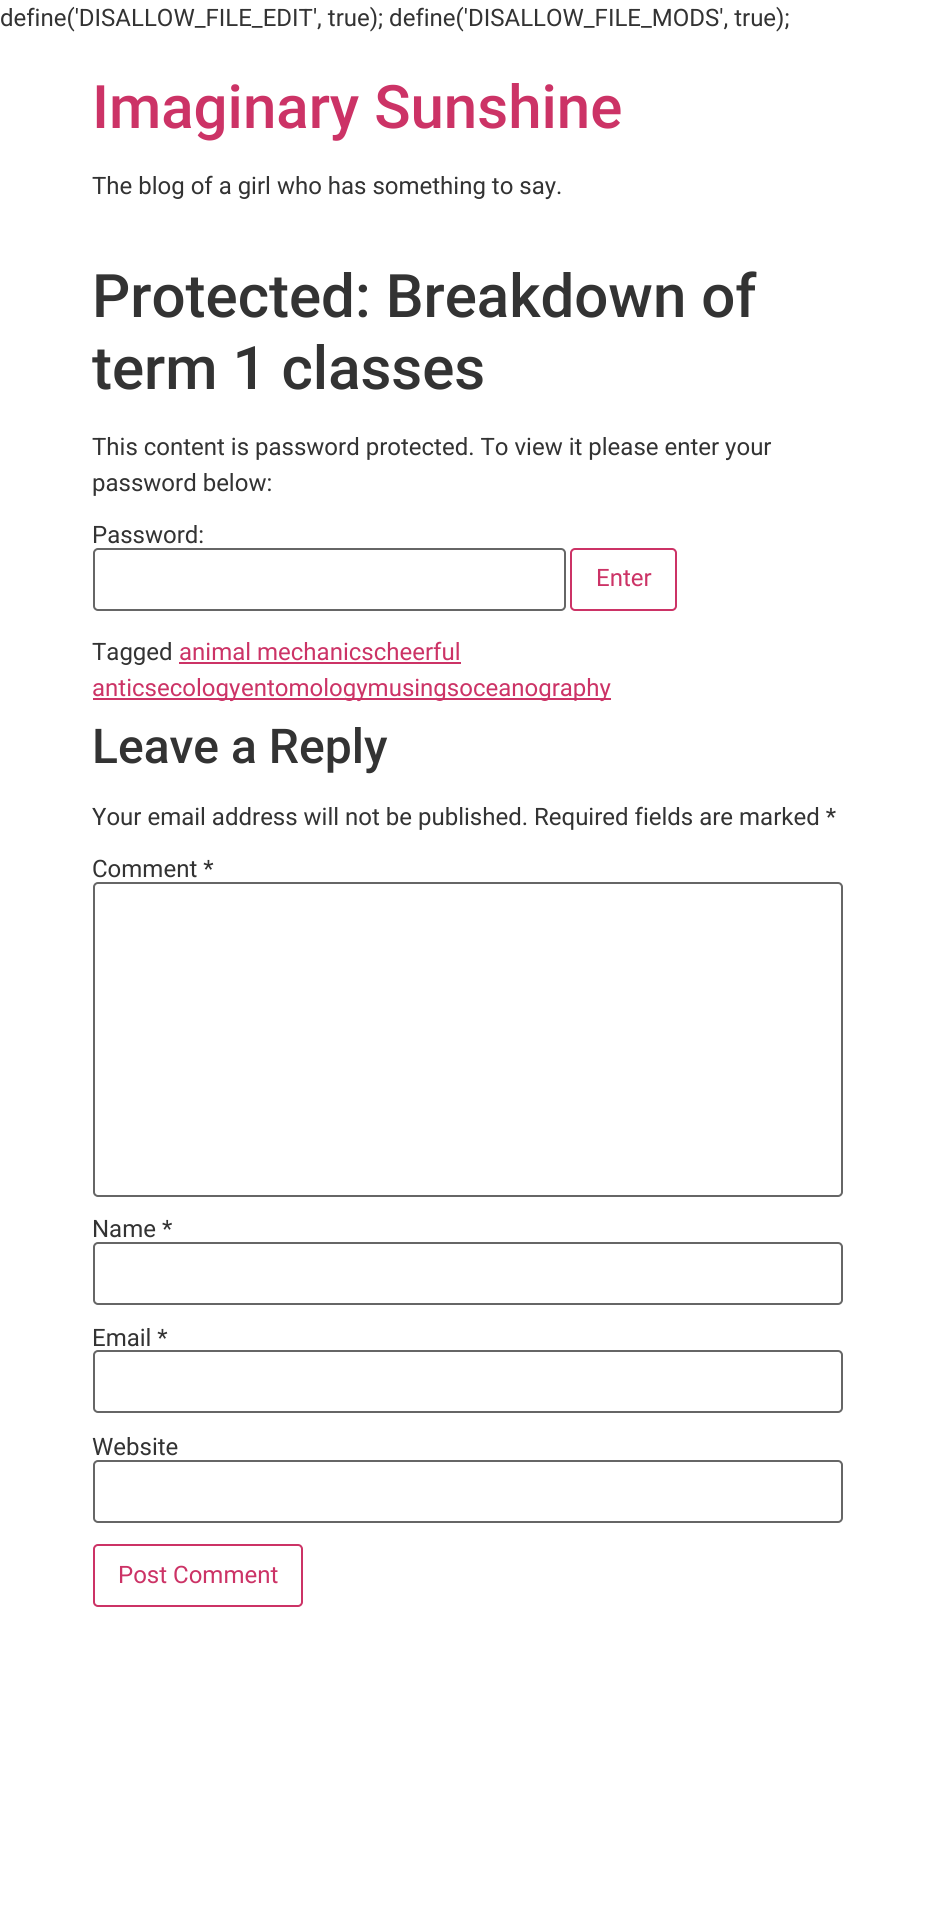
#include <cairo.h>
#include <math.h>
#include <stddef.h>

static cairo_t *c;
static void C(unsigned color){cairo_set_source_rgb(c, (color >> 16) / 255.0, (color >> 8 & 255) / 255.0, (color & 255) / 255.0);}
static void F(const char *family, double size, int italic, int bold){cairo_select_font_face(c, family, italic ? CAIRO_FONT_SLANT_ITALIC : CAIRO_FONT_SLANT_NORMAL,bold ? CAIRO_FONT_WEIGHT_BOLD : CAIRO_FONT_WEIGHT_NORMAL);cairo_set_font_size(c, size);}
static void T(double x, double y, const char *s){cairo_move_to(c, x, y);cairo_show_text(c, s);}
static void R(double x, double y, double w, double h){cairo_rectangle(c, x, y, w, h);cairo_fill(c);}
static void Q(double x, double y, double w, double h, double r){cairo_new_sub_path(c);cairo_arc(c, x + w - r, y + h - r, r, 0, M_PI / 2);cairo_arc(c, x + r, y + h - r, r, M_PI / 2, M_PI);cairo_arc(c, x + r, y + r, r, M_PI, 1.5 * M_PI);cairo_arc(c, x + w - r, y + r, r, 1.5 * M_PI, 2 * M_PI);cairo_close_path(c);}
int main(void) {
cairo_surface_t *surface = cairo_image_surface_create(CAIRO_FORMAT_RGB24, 934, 1927);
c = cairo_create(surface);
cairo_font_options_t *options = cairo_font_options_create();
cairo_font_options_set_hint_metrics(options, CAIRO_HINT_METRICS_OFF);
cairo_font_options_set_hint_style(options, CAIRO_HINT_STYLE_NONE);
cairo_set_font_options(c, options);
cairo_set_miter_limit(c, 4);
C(0xffffff);
cairo_paint(c);
F("Roboto",24,0,0);
C(0x333333);
T(0,26,"define('DISALLOW_FILE_EDIT', true); define('DISALLOW_FILE_MODS', true);");
F("Roboto Medium",60,0,0);
C(0xcc3366);
T(92,128,"Imaginary Sunshine");
F("Roboto",24,0,0);
C(0x333333);
T(92,194,"The blog of a girl who has something to say.");
F("Roboto Medium",60,0,0);
T(92,317,"Protected: Breakdown of");
T(92,389,"term 1 classes");
F("Roboto",24,0,0);
T(92,455,"This content is password protected. To view it please enter your");
T(92,491,"password below:");
T(92,543,"Password:");
Q(94,549,471,61,4);
C(0x666666);
cairo_stroke(c);
Q(571,549,105,61,4);
C(0xcc3366);
cairo_stroke(c);
T(596,586,"Enter");
C(0x333333);
T(92,660,"Tagged");
C(0xcc3366);
T(179,660,"animal mechanicscheerful");
R(179,662,282,2);
R(93,698,147,2);
T(92,696,"anticsecology");
R(240,698,371,2);
T(241,696,"entomologymusingsoceanography");
F("Roboto Medium",48,0,0);
C(0x333333);
T(92,763,"Leave a Reply");
F("Roboto",24,0,0);
T(92,825,"Your email address will not be published. Required fields are marked *");
T(92,877,"Comment *");
Q(94,883,748,313,4);
C(0x666666);
cairo_stroke(c);
C(0x333333);
T(92,1237,"Name *");
Q(94,1243,748,61,4);
C(0x666666);
cairo_stroke(c);
C(0x333333);
T(92,1346,"Email *");
Q(94,1351,748,61,4);
C(0x666666);
cairo_stroke(c);
C(0x333333);
T(92,1455,"Website");
Q(94,1461,748,61,4);
C(0x666666);
cairo_stroke(c);
Q(94,1545,208,61,4);
C(0xcc3366);
cairo_stroke(c);
T(118,1583,"Post Comment");
cairo_surface_write_to_png(surface, "o.png");
cairo_font_options_destroy(options);
cairo_destroy(c);
cairo_surface_destroy(surface);
return 0;
}
